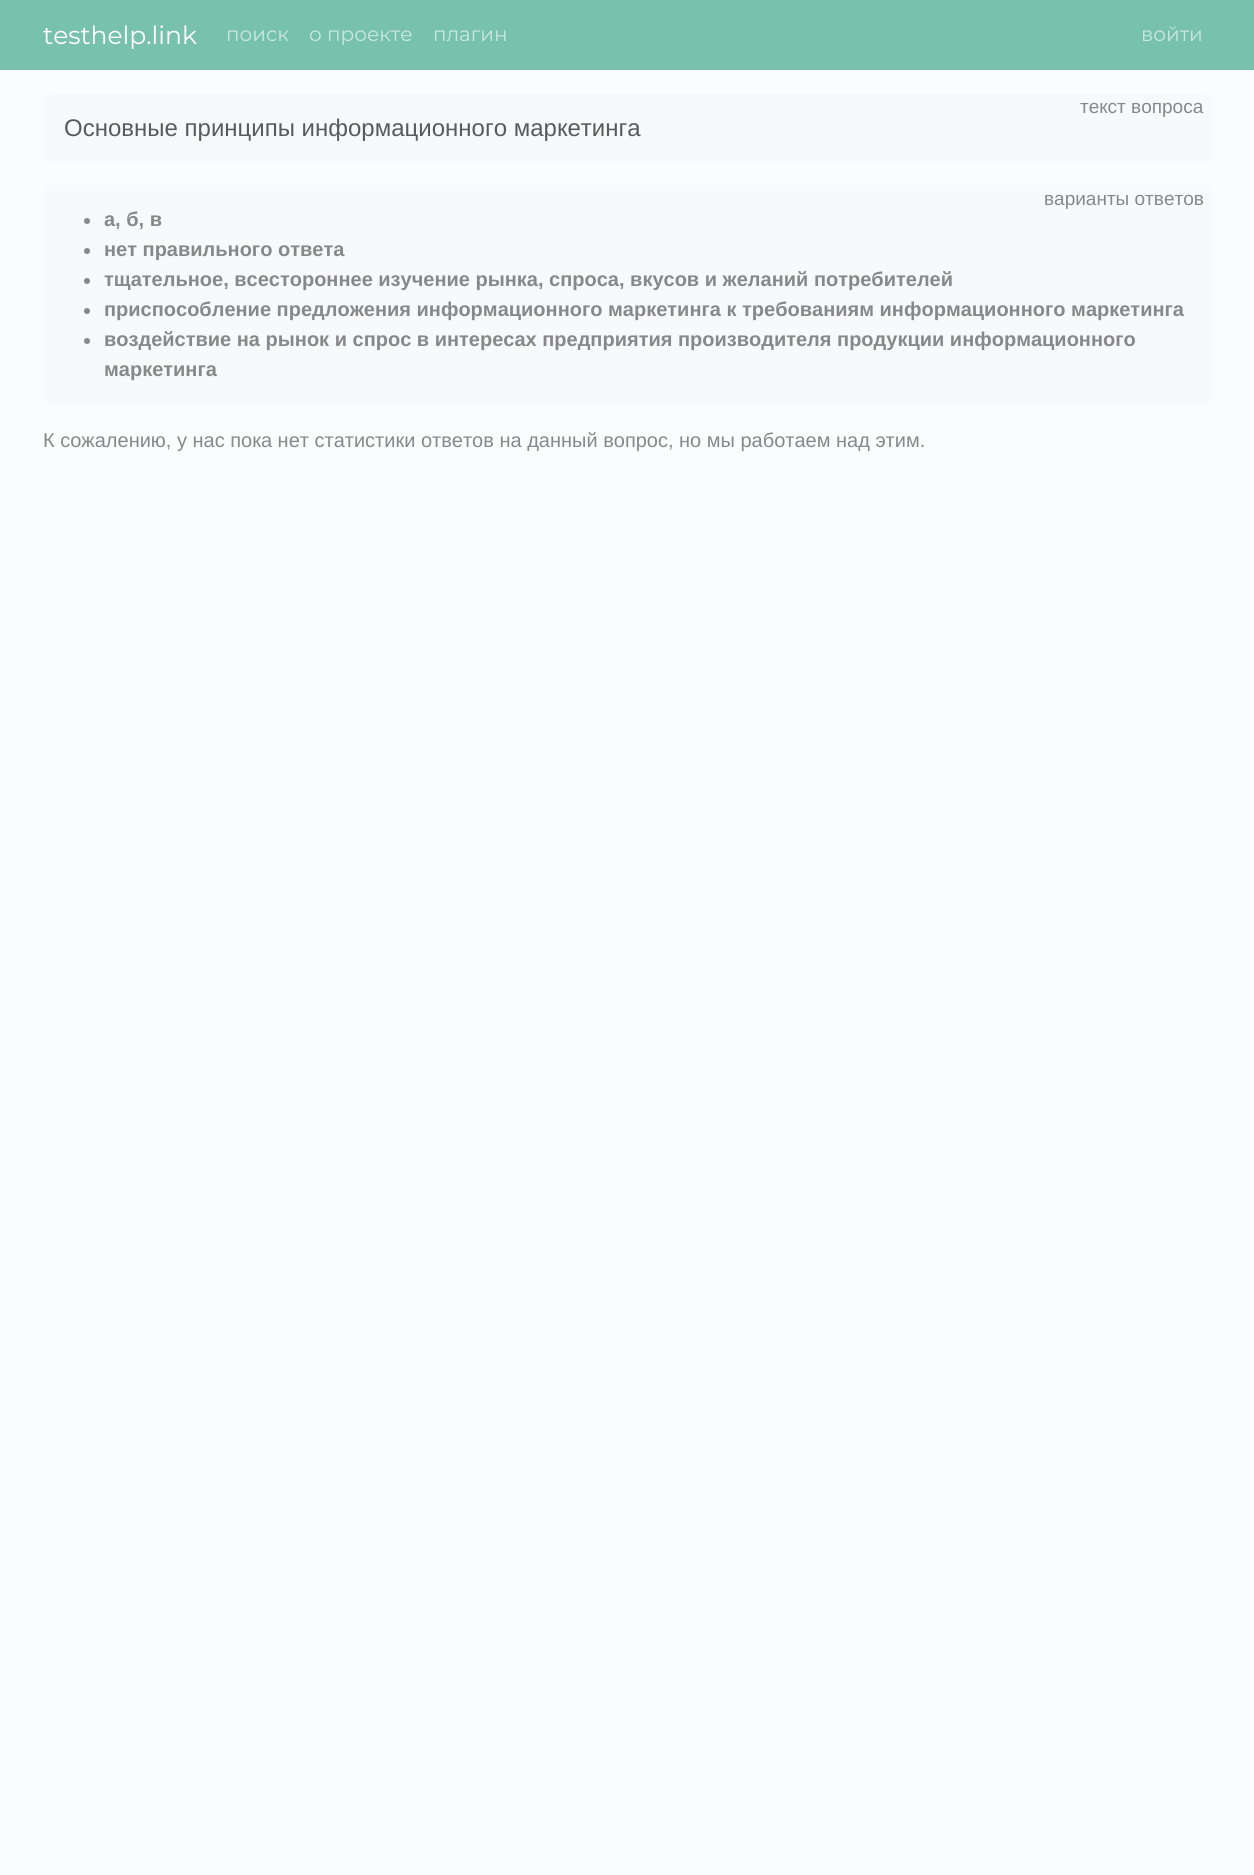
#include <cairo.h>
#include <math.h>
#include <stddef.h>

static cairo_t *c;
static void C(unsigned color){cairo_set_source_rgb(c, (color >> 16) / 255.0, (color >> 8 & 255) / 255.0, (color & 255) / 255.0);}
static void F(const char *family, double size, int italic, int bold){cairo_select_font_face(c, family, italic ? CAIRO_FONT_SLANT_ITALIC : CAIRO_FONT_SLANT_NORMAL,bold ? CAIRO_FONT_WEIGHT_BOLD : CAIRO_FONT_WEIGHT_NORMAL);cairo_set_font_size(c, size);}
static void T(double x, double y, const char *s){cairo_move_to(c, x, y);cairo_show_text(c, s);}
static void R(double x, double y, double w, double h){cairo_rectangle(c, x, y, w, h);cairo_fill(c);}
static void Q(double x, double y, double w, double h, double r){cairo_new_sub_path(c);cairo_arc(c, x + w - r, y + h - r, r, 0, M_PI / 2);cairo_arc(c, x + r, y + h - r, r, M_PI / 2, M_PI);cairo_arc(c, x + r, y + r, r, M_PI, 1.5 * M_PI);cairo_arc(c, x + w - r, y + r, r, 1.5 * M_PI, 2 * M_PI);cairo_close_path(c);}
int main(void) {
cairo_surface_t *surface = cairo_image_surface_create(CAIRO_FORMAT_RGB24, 1254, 1875);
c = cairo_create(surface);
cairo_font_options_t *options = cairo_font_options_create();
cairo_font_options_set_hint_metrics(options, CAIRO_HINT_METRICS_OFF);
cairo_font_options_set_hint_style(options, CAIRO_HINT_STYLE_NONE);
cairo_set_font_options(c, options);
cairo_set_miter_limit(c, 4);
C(0xfbfcfd);
cairo_paint(c);
C(0x78c2ad);
R(0,0,1254,70);
F("Montserrat",25,0,0);
C(0xffffff);
T(43,44,"testhelp.link");
F("Montserrat",20,0,0);
C(0xc9e7de);
T(226,41,"поиск");
T(309,41,"о проекте");
T(433,41,"плагин");
T(1141,41,"войти");
C(0xf8f9fa);
Q(43.5,93.5,1169,70,7.5);
cairo_fill_preserve(c);
C(0xfdfdfe);
cairo_set_line_width(c,1);
cairo_stroke(c);
F("Liberation Sans",19,0,0);
C(0x888888);
T(1080,113,"текст вопроса");
F("Liberation Sans",24,0,0);
C(0x5a5a5a);
T(64,136,"Основные принципы информационного маркетинга");
C(0xf8f9fa);
Q(43.5,184.5,1169,221,7.5);
cairo_fill_preserve(c);
C(0xfdfdfe);
cairo_stroke(c);
F("Liberation Sans",19,0,0);
C(0x888888);
T(1044,205,"варианты ответов");
cairo_new_path(c);
cairo_arc(c,87,221,3,0,2 * M_PI);
cairo_fill(c);
F("Liberation Sans",20,0,1);
T(104,226,"а, б, в");
cairo_new_path(c);
cairo_arc(c,87,251,3,0,2 * M_PI);
cairo_fill(c);
T(104,256,"нет правильного ответа");
cairo_new_path(c);
cairo_arc(c,87,281,3,0,2 * M_PI);
cairo_fill(c);
T(104,286,"тщательное, всестороннее изучение рынка, спроса, вкусов и желаний потребителей");
cairo_new_path(c);
cairo_arc(c,87,311,3,0,2 * M_PI);
cairo_fill(c);
T(104,316,"приспособление предложения информационного маркетинга к требованиям информационного маркетинга");
cairo_new_path(c);
cairo_arc(c,87,341,3,0,2 * M_PI);
cairo_fill(c);
T(104,346,"воздействие на рынок и спрос в интересах предприятия производителя продукции информационного");
T(104,376,"маркетинга");
F("Liberation Sans",20,0,0);
T(43,447,"К сожалению, у нас пока нет статистики ответов на данный вопрос, но мы работаем над этим.");
cairo_surface_write_to_png(surface, "o.png");
cairo_font_options_destroy(options);
cairo_destroy(c);
cairo_surface_destroy(surface);
return 0;
}
